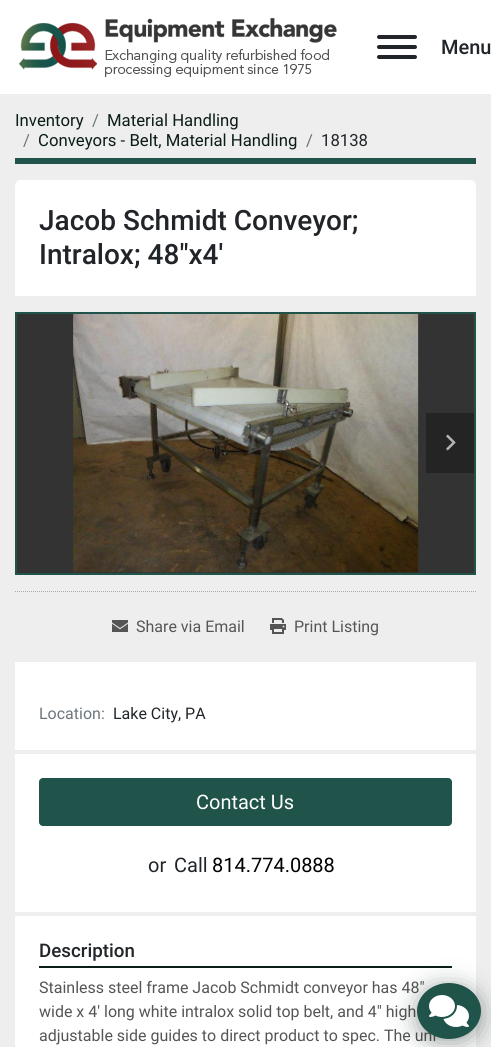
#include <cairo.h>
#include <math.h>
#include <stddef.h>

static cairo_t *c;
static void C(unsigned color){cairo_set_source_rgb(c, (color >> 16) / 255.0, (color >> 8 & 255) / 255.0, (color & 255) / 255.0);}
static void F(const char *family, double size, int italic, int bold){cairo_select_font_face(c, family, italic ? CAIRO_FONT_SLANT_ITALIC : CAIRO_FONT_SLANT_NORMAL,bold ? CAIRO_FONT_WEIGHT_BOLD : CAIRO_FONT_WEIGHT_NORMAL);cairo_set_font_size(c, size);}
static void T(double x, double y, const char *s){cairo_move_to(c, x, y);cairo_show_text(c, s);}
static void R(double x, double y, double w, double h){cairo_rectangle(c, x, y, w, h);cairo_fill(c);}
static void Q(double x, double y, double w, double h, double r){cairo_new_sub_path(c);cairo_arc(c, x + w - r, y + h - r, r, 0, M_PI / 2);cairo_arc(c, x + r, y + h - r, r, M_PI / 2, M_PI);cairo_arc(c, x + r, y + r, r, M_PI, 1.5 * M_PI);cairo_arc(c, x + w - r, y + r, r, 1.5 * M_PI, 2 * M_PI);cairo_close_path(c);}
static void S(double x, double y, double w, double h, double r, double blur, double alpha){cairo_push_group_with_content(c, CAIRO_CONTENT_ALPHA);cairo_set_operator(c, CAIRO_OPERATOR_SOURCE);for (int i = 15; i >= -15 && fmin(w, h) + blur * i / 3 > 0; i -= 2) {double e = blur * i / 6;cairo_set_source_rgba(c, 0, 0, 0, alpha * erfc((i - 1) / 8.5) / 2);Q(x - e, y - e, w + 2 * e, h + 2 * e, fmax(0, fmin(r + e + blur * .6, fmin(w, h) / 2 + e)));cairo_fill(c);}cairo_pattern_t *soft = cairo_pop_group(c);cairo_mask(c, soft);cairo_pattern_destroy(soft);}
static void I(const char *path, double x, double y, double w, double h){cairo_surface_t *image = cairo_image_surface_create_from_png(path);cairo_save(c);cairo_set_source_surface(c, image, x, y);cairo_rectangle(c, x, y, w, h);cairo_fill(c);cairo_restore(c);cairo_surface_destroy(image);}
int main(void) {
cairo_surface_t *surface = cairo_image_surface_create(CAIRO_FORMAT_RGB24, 491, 1047);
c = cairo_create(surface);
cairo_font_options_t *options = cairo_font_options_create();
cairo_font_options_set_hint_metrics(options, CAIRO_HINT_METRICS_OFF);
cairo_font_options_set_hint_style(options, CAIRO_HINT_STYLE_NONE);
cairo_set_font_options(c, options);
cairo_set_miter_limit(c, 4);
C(0xeeeeee);
cairo_paint(c);
C(0xffffff);
R(0,0,491,94);
I("1.png",19,17,318,60);
C(0x212529);
Q(377,45,40,4,2);
cairo_fill(c);
Q(377,35,40,4,2);
cairo_fill(c);
Q(377,55,40,4,2);
cairo_fill(c);
F("Roboto Medium",20,0,0);
T(441,54,"Menu");
C(0x20544a);
R(15,158,461,6);
F("Roboto",16.75,0,0);
C(0x0b1d19);
T(15,126,"Inventory");
C(0x6c757d);
T(92,126,"/");
C(0x0b1d19);
T(107,126,"Material Handling");
C(0x6c757d);
T(23,146,"/");
C(0x0b1d19);
T(38,146,"Conveyors - Belt, Material Handling");
C(0x6c757d);
T(306,146,"/");
C(0x212529);
T(321,146,"18138");
C(0xffffff);
cairo_new_path(c);
cairo_move_to(c,21,180);
cairo_line_to(c,470,180);
cairo_curve_to(c,473.5,180,476,182.5,476,186);
cairo_line_to(c,476,296);
cairo_line_to(c,15,296);
cairo_line_to(c,15,186);
cairo_curve_to(c,15,182.5,17.5,180,21,180);
cairo_close_path(c);
cairo_fill(c);
F("Roboto Medium",28,0,0);
C(0x212529);
T(39,230,"Jacob Schmidt Conveyor;");
T(39,264,"Intralox; 48\"x4'");
C(0x333333);
cairo_rectangle(c,16,313,459,261);
cairo_fill_preserve(c);
C(0x20544a);
cairo_stroke(c);
I("2.png",73,314,346,259);
C(0x242424);
R(426,413,48,60);
I("3.png",446,434,10,17);
cairo_new_path(c);
cairo_move_to(c,15,591.5);
cairo_line_to(c,476,591.5);
C(0xaaaaaa);
cairo_set_line_width(c,1);
cairo_set_dash(c,(double[]){1,1},2,0);
cairo_stroke(c);
I("4.png",112,620,16,12);
F("Roboto",16,0,0);
C(0x555555);
T(136,632,"Share via Email");
I("5.png",270,618,16,16);
T(294,632,"Print Listing");
C(0xffffff);
R(15,662,461,385);
C(0x6c757d);
T(39,719,"Location:");
C(0x212529);
T(113,719,"Lake City, PA");
C(0xeeeeee);
R(15,750,461,4);
R(15,912,461,4);
C(0x20544a);
Q(39.5,778.5,412,47,3.5);
cairo_fill_preserve(c);
cairo_set_dash(c,NULL,0,0);
cairo_stroke(c);
F("Roboto",20,0,0);
C(0xffffff);
T(196,809,"Contact Us");
C(0x212529);
T(148,872,"or");
T(174,872,"Call");
C(0x000000);
T(212,872,"814.774.0888");
C(0x0b1d19);
R(39,966,413,2);
F("Roboto Medium",18.75,0,0);
C(0x212529);
T(39,957,"Description");
F("Roboto",16,0,0);
C(0x555555);
T(39,993,"Stainless steel frame Jacob Schmidt conveyor has 48\"");
T(39,1017,"wide x 4' long white intralox solid top belt, and 4\" high");
T(39,1041,"adjustable side guides to direct product to spec. The uni");
C(0x0b1d19);
S(417,987,64,56,28,12,.4);
C(0x20544a);
cairo_new_path(c);
cairo_move_to(c,449,983);
cairo_curve_to(c,466.5,983,481,995.5,481,1011);
cairo_curve_to(c,481,1026.5,466.5,1039,449,1039);
cairo_curve_to(c,431.5,1039,417,1026.5,417,1011);
cairo_curve_to(c,417,995.5,431.5,983,449,983);
cairo_close_path(c);
cairo_fill(c);
I("6.png",429,995,40,32);
cairo_surface_write_to_png(surface, "o.png");
cairo_font_options_destroy(options);
cairo_destroy(c);
cairo_surface_destroy(surface);
return 0;
}
